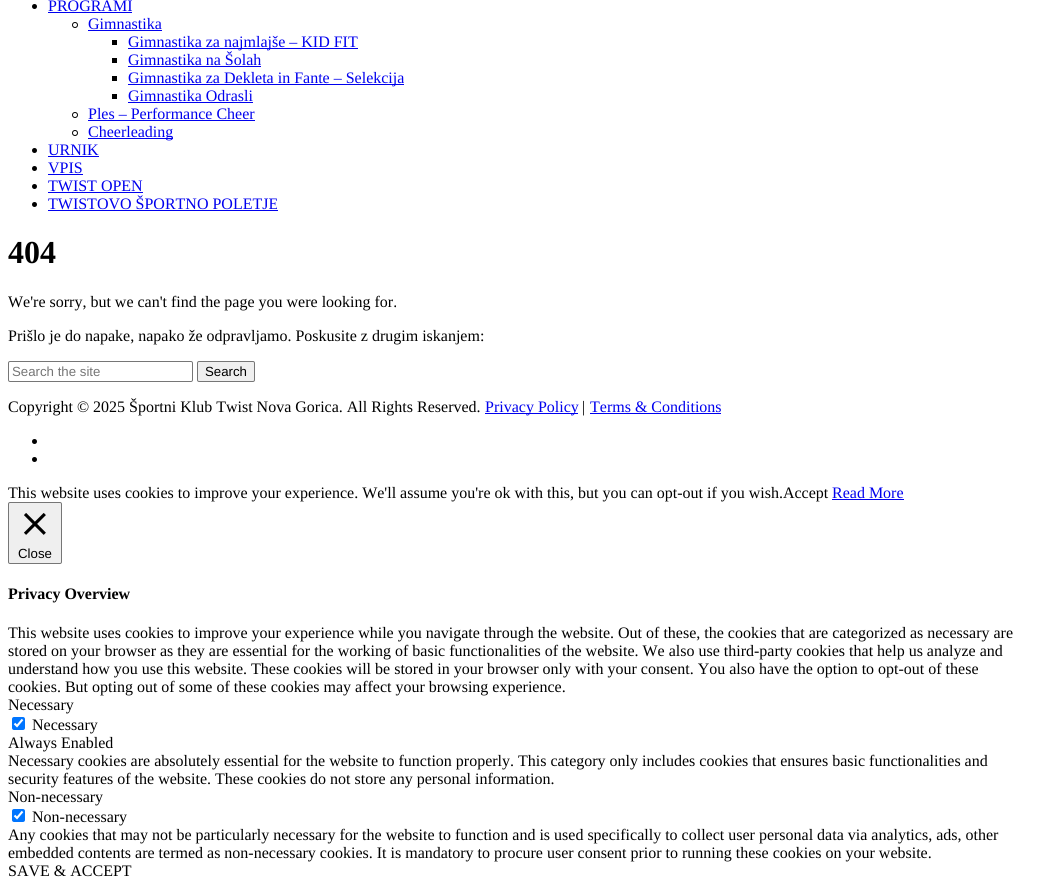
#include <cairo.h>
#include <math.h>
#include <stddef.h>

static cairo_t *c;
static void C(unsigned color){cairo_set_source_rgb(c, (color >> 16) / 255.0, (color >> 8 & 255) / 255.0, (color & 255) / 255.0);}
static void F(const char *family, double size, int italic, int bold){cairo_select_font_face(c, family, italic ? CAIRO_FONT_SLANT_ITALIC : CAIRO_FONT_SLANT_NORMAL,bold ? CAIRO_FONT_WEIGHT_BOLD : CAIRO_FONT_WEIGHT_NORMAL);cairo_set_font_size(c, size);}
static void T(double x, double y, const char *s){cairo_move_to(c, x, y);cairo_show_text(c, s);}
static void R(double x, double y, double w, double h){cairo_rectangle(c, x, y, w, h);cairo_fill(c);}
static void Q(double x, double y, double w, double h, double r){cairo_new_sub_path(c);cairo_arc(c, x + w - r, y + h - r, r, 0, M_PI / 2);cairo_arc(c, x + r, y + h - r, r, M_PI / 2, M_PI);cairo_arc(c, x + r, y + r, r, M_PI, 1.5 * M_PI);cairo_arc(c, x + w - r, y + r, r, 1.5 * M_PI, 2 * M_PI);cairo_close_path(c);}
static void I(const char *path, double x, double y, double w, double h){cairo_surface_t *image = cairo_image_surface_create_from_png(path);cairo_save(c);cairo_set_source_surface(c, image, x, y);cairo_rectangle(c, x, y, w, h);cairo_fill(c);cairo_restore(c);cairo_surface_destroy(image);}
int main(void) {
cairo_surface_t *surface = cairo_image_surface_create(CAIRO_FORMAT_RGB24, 1038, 888);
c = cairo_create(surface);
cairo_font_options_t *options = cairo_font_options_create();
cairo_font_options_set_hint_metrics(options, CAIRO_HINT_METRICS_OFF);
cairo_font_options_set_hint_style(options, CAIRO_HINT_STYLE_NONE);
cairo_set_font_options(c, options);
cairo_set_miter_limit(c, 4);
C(0xffffff);
cairo_paint(c);
C(0x000000);
cairo_arc(c,34.5,6.5,2.5,0,2 * M_PI);
cairo_fill(c);
F("Liberation Serif",16,0,0);
C(0x0000ee);
T(48,11,"PROGRAMI");
R(48,12,84,1);
cairo_new_path(c);
cairo_arc(c,75,25,2.5,0,2 * M_PI);
C(0x000000);
cairo_set_line_width(c,1);
cairo_stroke(c);
C(0x0000ee);
T(88,29,"Gimnastika");
R(88,30,74,1);
C(0x000000);
R(112,40,5,5);
C(0x0000ee);
R(128,48,230,1);
T(128,47,"Gimnastika za najmlajše – KID FIT");
C(0x000000);
R(112,58,5,5);
C(0x0000ee);
T(128,65,"Gimnastika na Šolah");
R(128,66,133,1);
C(0x000000);
R(112,76,5,5);
C(0x0000ee);
R(128,84,276,1);
T(128,83,"Gimnastika za Dekleta in Fante – Selekcija");
C(0x000000);
R(112,94,5,5);
C(0x0000ee);
T(128,101,"Gimnastika Odrasli");
R(128,102,125,1);
cairo_new_path(c);
cairo_arc(c,75,115,2.5,0,2 * M_PI);
C(0x000000);
cairo_stroke(c);
C(0x0000ee);
T(88,119,"Ples – Performance Cheer");
R(88,120,167,1);
cairo_new_path(c);
cairo_arc(c,75,133,2.5,0,2 * M_PI);
C(0x000000);
cairo_stroke(c);
C(0x0000ee);
R(88,138,85,1);
T(88,137,"Cheerleading");
C(0x000000);
cairo_new_path(c);
cairo_arc(c,34.5,150.5,2.5,0,2 * M_PI);
cairo_fill(c);
C(0x0000ee);
T(48,155,"URNIK");
R(48,156,51,1);
C(0x000000);
cairo_new_path(c);
cairo_arc(c,34.5,168.5,2.5,0,2 * M_PI);
cairo_fill(c);
C(0x0000ee);
T(48,173,"VPIS");
R(48,174,35,1);
C(0x000000);
cairo_new_path(c);
cairo_arc(c,34.5,186.5,2.5,0,2 * M_PI);
cairo_fill(c);
C(0x0000ee);
T(48,191,"TWIST OPEN");
R(48,192,95,1);
C(0x000000);
cairo_new_path(c);
cairo_arc(c,34.5,204.5,2.5,0,2 * M_PI);
cairo_fill(c);
C(0x0000ee);
T(48,209,"TWISTOVO ŠPORTNO POLETJE");
R(48,210,230,1);
F("Liberation Serif",32,0,1);
C(0x000000);
T(8,263,"404");
F("Liberation Serif",16,0,0);
T(8,307,"We're sorry, but we can't find the page you were looking for.");
T(8,341,"Prišlo je do napake, napako že odpravljamo. Poskusite z drugim iskanjem:");
Q(8.5,361.5,184,20,1.5);
C(0x767676);
cairo_stroke(c);
F("Liberation Sans",13.25,0,0);
C(0x757575);
T(12,376,"Search the site");
C(0xefefef);
Q(197.5,361.5,57,20,1.5);
cairo_fill_preserve(c);
C(0x767676);
cairo_stroke(c);
C(0x000000);
T(205,376,"Search");
F("Liberation Serif",16,0,0);
T(8,412,"Copyright © 2025 Športni Klub Twist Nova Gorica. All Rights Reserved.");
C(0x0000ee);
R(485,413,93,1);
T(485,412,"Privacy Policy");
C(0x000000);
T(582,412,"|");
C(0x0000ee);
T(590,412,"Terms & Conditions");
R(590,413,131,1);
C(0x000000);
cairo_new_path(c);
cairo_arc(c,34.5,441.5,2.5,0,2 * M_PI);
cairo_fill(c);
cairo_arc(c,34.5,459.5,2.5,0,2 * M_PI);
cairo_fill(c);
T(8,498,"This website uses cookies to improve your experience. We'll assume you're ok with this, but you can opt-out if you wish.Accept");
C(0x0000ee);
T(832,498,"Read More");
R(832,499,72,1);
C(0xefefef);
Q(8.5,502.5,53,61,1.5);
cairo_fill_preserve(c);
C(0x767676);
cairo_stroke(c);
I("1.png",24,513,22,22);
F("Liberation Sans",13.25,0,0);
C(0x000000);
T(18,558,"Close");
F("Liberation Serif",16,0,1);
T(8,599,"Privacy Overview");
F("Liberation Serif",16,0,0);
T(8,638,"This website uses cookies to improve your experience while you navigate through the website. Out of these, the cookies that are categorized as necessary are");
T(8,656,"stored on your browser as they are essential for the working of basic functionalities of the website. We also use third-party cookies that help us analyze and");
T(8,674,"understand how you use this website. These cookies will be stored in your browser only with your consent. You also have the option to opt-out of these");
T(8,692,"cookies. But opting out of some of these cookies may affect your browsing experience.");
T(8,710,"Necessary");
C(0x0075ff);
Q(12,717,13,13,2);
cairo_fill(c);
cairo_new_path(c);
cairo_move_to(c,14.5,723.5);
cairo_line_to(c,17,726);
cairo_line_to(c,22.5,719.5);
C(0xffffff);
cairo_set_line_width(c,2.1);
cairo_stroke(c);
C(0x000000);
T(32,730,"Necessary");
T(8,748,"Always Enabled");
T(8,766,"Necessary cookies are absolutely essential for the website to function properly. This category only includes cookies that ensures basic functionalities and");
T(8,784,"security features of the website. These cookies do not store any personal information.");
T(8,802,"Non-necessary");
C(0x0075ff);
Q(12,809,13,13,2);
cairo_fill(c);
cairo_new_path(c);
cairo_move_to(c,14.5,815.5);
cairo_line_to(c,17,818);
cairo_line_to(c,22.5,811.5);
C(0xffffff);
cairo_stroke(c);
C(0x000000);
T(32,822,"Non-necessary");
T(8,840,"Any cookies that may not be particularly necessary for the website to function and is used specifically to collect user personal data via analytics, ads, other");
T(8,858,"embedded contents are termed as non-necessary cookies. It is mandatory to procure user consent prior to running these cookies on your website.");
T(8,876,"SAVE & ACCEPT");
cairo_surface_write_to_png(surface, "o.png");
cairo_font_options_destroy(options);
cairo_destroy(c);
cairo_surface_destroy(surface);
return 0;
}
